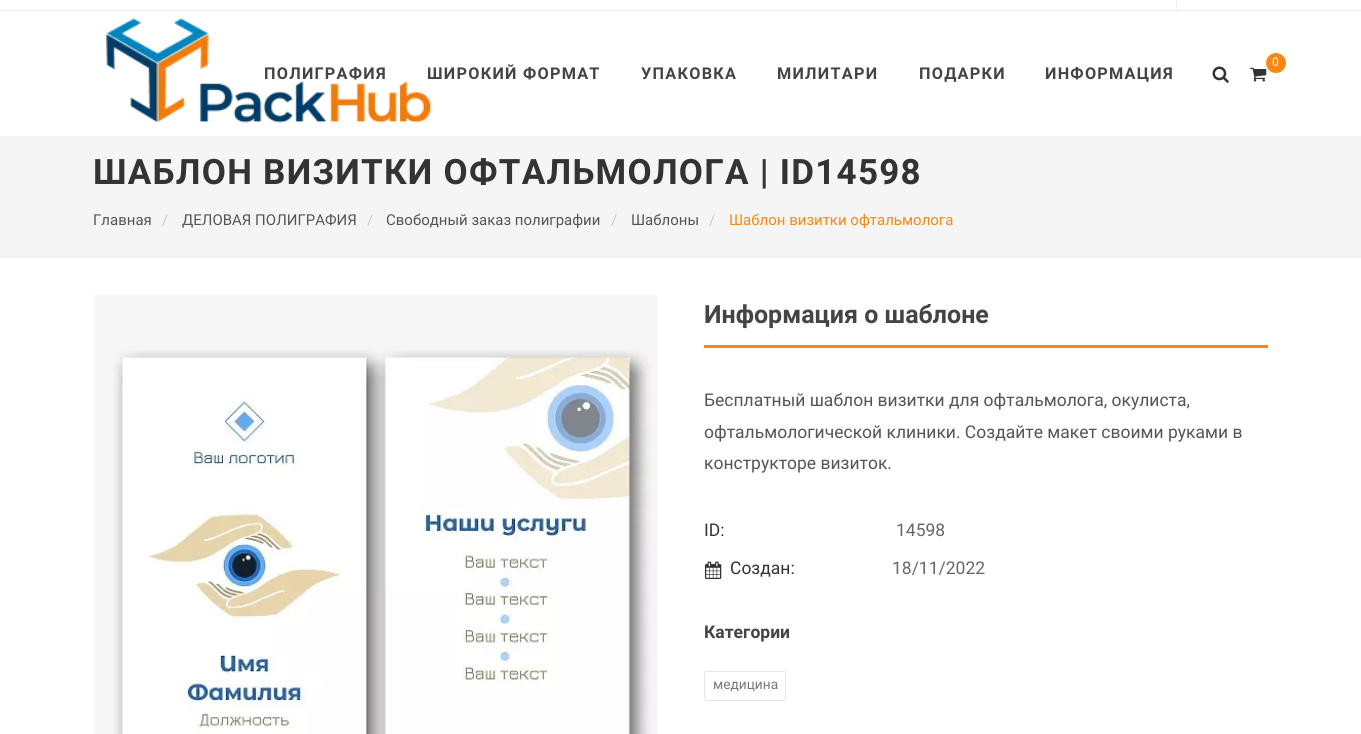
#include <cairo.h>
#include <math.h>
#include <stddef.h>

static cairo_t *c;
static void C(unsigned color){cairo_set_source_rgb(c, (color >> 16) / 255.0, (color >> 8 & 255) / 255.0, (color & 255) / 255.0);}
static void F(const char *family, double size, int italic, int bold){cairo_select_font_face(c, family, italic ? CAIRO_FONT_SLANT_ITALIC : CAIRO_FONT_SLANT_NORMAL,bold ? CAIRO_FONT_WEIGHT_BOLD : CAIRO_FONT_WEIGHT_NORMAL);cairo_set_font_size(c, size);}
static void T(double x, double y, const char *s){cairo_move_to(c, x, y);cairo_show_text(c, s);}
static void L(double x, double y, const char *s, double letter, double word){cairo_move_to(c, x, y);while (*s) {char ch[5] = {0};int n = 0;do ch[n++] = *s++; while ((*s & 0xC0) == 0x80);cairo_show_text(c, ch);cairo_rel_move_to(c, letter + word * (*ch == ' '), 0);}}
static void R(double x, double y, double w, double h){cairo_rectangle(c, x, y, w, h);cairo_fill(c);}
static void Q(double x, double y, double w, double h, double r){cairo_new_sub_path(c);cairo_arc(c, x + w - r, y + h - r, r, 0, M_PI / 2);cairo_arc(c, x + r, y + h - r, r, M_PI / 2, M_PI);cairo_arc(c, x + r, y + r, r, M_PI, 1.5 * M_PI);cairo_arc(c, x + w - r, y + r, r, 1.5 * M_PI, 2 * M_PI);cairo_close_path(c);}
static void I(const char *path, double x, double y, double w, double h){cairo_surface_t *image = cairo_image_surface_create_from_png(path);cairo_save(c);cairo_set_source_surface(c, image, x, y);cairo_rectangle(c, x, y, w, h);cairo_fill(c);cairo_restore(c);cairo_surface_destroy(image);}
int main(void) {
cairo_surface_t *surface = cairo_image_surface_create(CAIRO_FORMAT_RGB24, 1361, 734);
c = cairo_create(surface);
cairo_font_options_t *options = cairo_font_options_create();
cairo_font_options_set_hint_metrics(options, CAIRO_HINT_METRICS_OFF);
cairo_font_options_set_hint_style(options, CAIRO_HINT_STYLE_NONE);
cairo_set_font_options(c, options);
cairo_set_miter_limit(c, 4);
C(0xffffff);
cairo_paint(c);
C(0xeeeeee);
R(0,10,1361,1);
R(1176,0,1,10);
I("1.png",106,18,326,105);
I("2.png",1250,67,17,15);
C(0xf98813);
cairo_arc(c,1276,63,10,0,2 * M_PI);
cairo_fill(c);
F("Roboto",12,0,0);
C(0xffffff);
T(1272,66,"0");
F("Roboto",16.25,0,1);
C(0x444444);
L(264,79,"ПОЛИГРАФИЯ",1.25,0);
L(427,79,"ШИРОКИЙ ФОРМАТ",1.25,0);
L(641,79,"УПАКОВКА",1.25,0);
L(777,79,"МИЛИТАРИ",1.25,0);
L(919,79,"ПОДАРКИ",1.25,0);
L(1045,79,"ИНФОРМАЦИЯ",1.25,0);
I("3.png",1212,66,17,17);
C(0xf5f5f5);
R(0,136,1361,122);
C(0xeeeeee);
R(0,256,1361,1);
F("Roboto",35,0,1);
C(0x333333);
L(93,184,"ШАБЛОН ВИЗИТКИ ОФТАЛЬМОЛОГА | ID14598",1.25,0);
F("Roboto",15,0,0);
C(0x555555);
T(93,225,"Главная");
C(0xcccccc);
T(162,225,"/");
C(0x555555);
T(182,225,"ДЕЛОВАЯ ПОЛИГРАФИЯ");
C(0xcccccc);
T(367,225,"/");
C(0x555555);
T(386,225,"Свободный заказ полиграфии");
C(0xcccccc);
T(611,225,"/");
C(0x555555);
T(631,225,"Шаблоны");
C(0xcccccc);
T(709,225,"/");
C(0xf98813);
T(729,225,"Шаблон визитки офтальмолога");
I("4.png",94,295,564,439);
R(704,345,564,3);
F("Roboto",25,0,1);
C(0x444444);
T(704,323,"Информация о шаблоне");
F("Roboto",17.5,0,0);
C(0x555555);
T(704,406,"Бесплатный шаблон визитки для офтальмолога, окулиста,");
T(704,438,"офтальмологической клиники. Создайте макет своими руками в");
T(704,469,"конструкторе визиток.");
C(0x333333);
T(704,536,"ID:");
C(0x666666);
T(896,536,"14598");
I("5.png",705,561,17,18);
C(0x333333);
T(730,574,"Создан:");
C(0x666666);
T(892,574,"18/11/2022");
F("Roboto",17.5,0,1);
C(0x444444);
T(704,638,"Категории");
Q(704.5,671.5,81,29,2);
C(0xe5e5e5);
cairo_set_line_width(c,1);
cairo_stroke(c);
F("Roboto",13.75,0,0);
C(0x777777);
T(713,689,"медицина");
cairo_surface_write_to_png(surface, "o.png");
cairo_font_options_destroy(options);
cairo_destroy(c);
cairo_surface_destroy(surface);
return 0;
}
